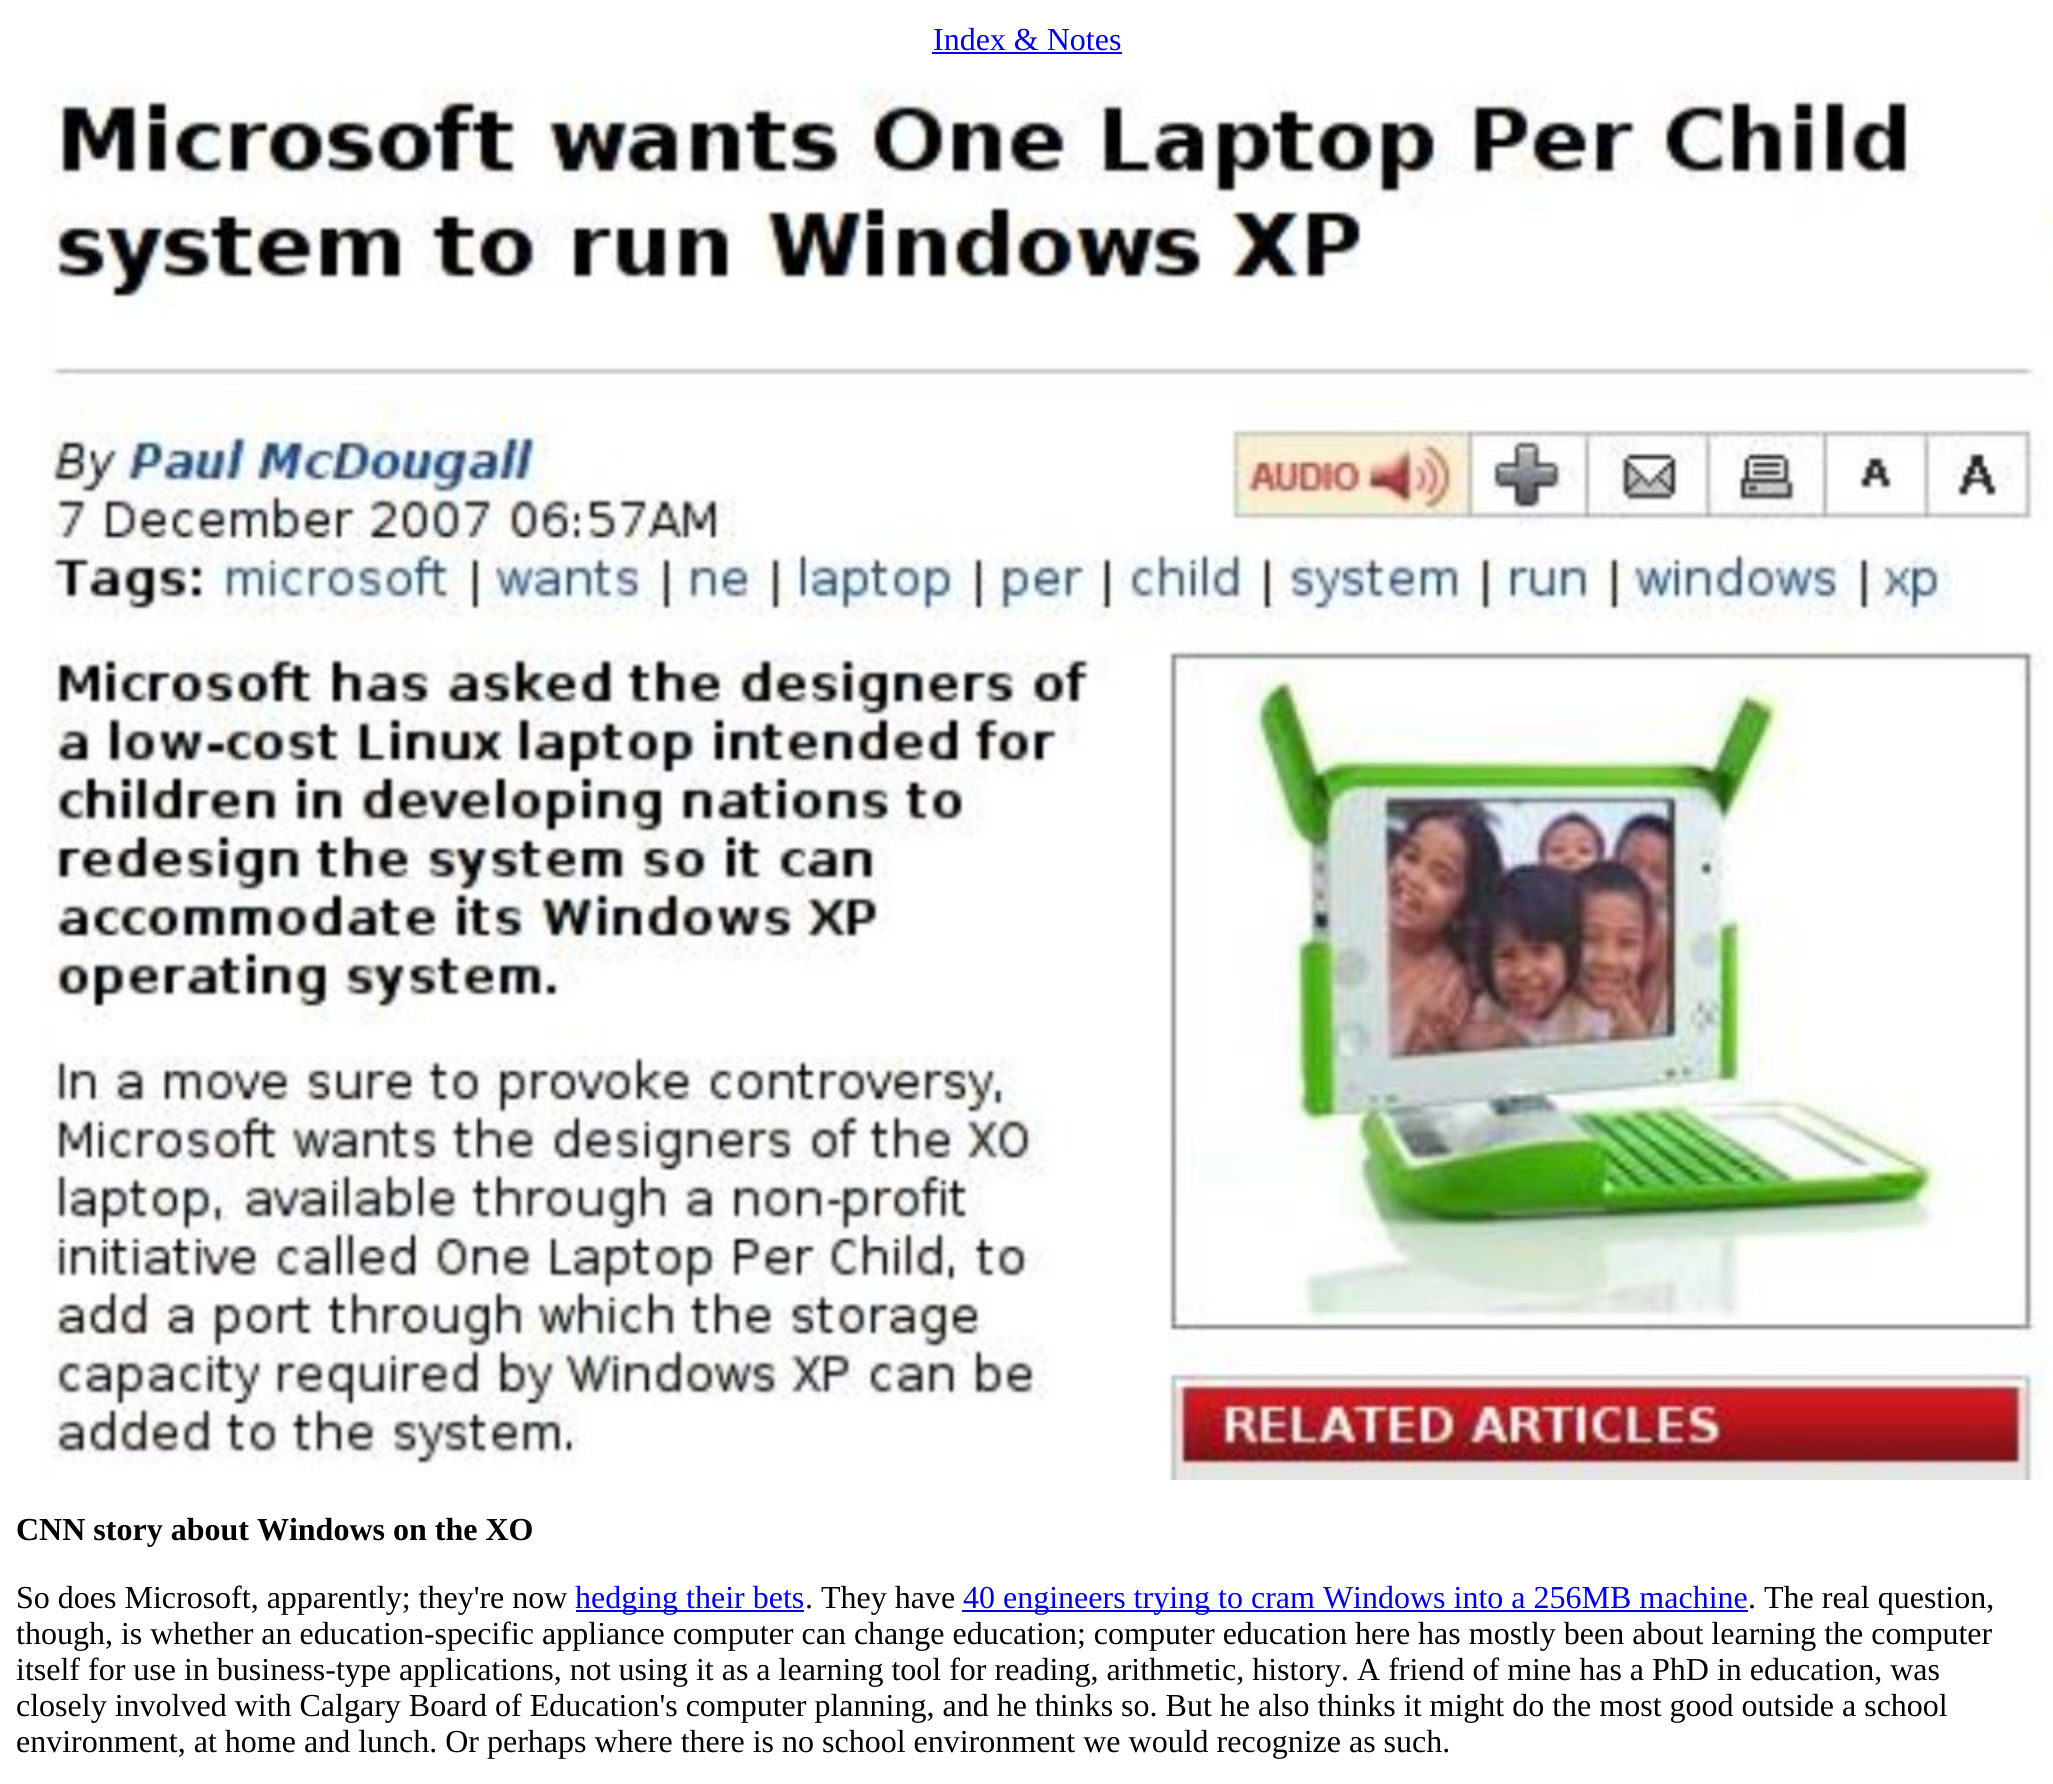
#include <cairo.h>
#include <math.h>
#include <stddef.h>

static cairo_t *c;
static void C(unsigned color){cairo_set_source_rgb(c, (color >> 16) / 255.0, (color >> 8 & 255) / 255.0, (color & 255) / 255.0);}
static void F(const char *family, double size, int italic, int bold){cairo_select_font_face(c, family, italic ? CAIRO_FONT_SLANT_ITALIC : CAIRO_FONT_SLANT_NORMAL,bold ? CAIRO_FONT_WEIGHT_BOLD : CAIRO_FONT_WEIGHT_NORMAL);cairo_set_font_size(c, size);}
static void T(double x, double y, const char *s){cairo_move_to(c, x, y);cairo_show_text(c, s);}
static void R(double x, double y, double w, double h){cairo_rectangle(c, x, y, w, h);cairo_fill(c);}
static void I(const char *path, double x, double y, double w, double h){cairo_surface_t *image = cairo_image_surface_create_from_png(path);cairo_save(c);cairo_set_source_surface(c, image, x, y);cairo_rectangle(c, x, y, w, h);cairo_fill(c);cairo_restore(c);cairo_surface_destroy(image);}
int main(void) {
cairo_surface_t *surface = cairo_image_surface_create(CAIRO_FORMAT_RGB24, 2053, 1784);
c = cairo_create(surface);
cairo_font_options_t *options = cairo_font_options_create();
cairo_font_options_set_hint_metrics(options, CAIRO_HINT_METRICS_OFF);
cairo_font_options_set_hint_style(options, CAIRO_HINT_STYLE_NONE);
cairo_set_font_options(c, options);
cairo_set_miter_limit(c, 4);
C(0xffffff);
cairo_paint(c);
F("Liberation Serif",32,0,0);
C(0x0000ee);
T(933,50,"Index & Notes");
R(932,52,190,2);
I("1.png",43,79,2010,1401);
F("Liberation Serif",32,0,1);
C(0x000000);
T(16,1540,"CNN story about Windows on the XO");
F("Liberation Serif",32,0,0);
T(16,1608,"So does Microsoft, apparently; they're now");
C(0x0000ee);
R(576,1610,228,2);
T(575,1608,"hedging their bets");
C(0x000000);
T(805,1608,". They have");
C(0x0000ee);
R(962,1610,786,2);
T(963,1608,"40 engineers trying to cram Windows into a 256MB machine");
C(0x000000);
T(1748,1608,". The real question,");
T(16,1644,"though, is whether an education-specific appliance computer can change education; computer education here has mostly been about learning the computer");
T(16,1680,"itself for use in business-type applications, not using it as a learning tool for reading, arithmetic, history. A friend of mine has a PhD in education, was");
T(16,1716,"closely involved with Calgary Board of Education's computer planning, and he thinks so. But he also thinks it might do the most good outside a school");
T(16,1752,"environment, at home and lunch. Or perhaps where there is no school environment we would recognize as such.");
cairo_surface_write_to_png(surface, "o.png");
cairo_font_options_destroy(options);
cairo_destroy(c);
cairo_surface_destroy(surface);
return 0;
}
